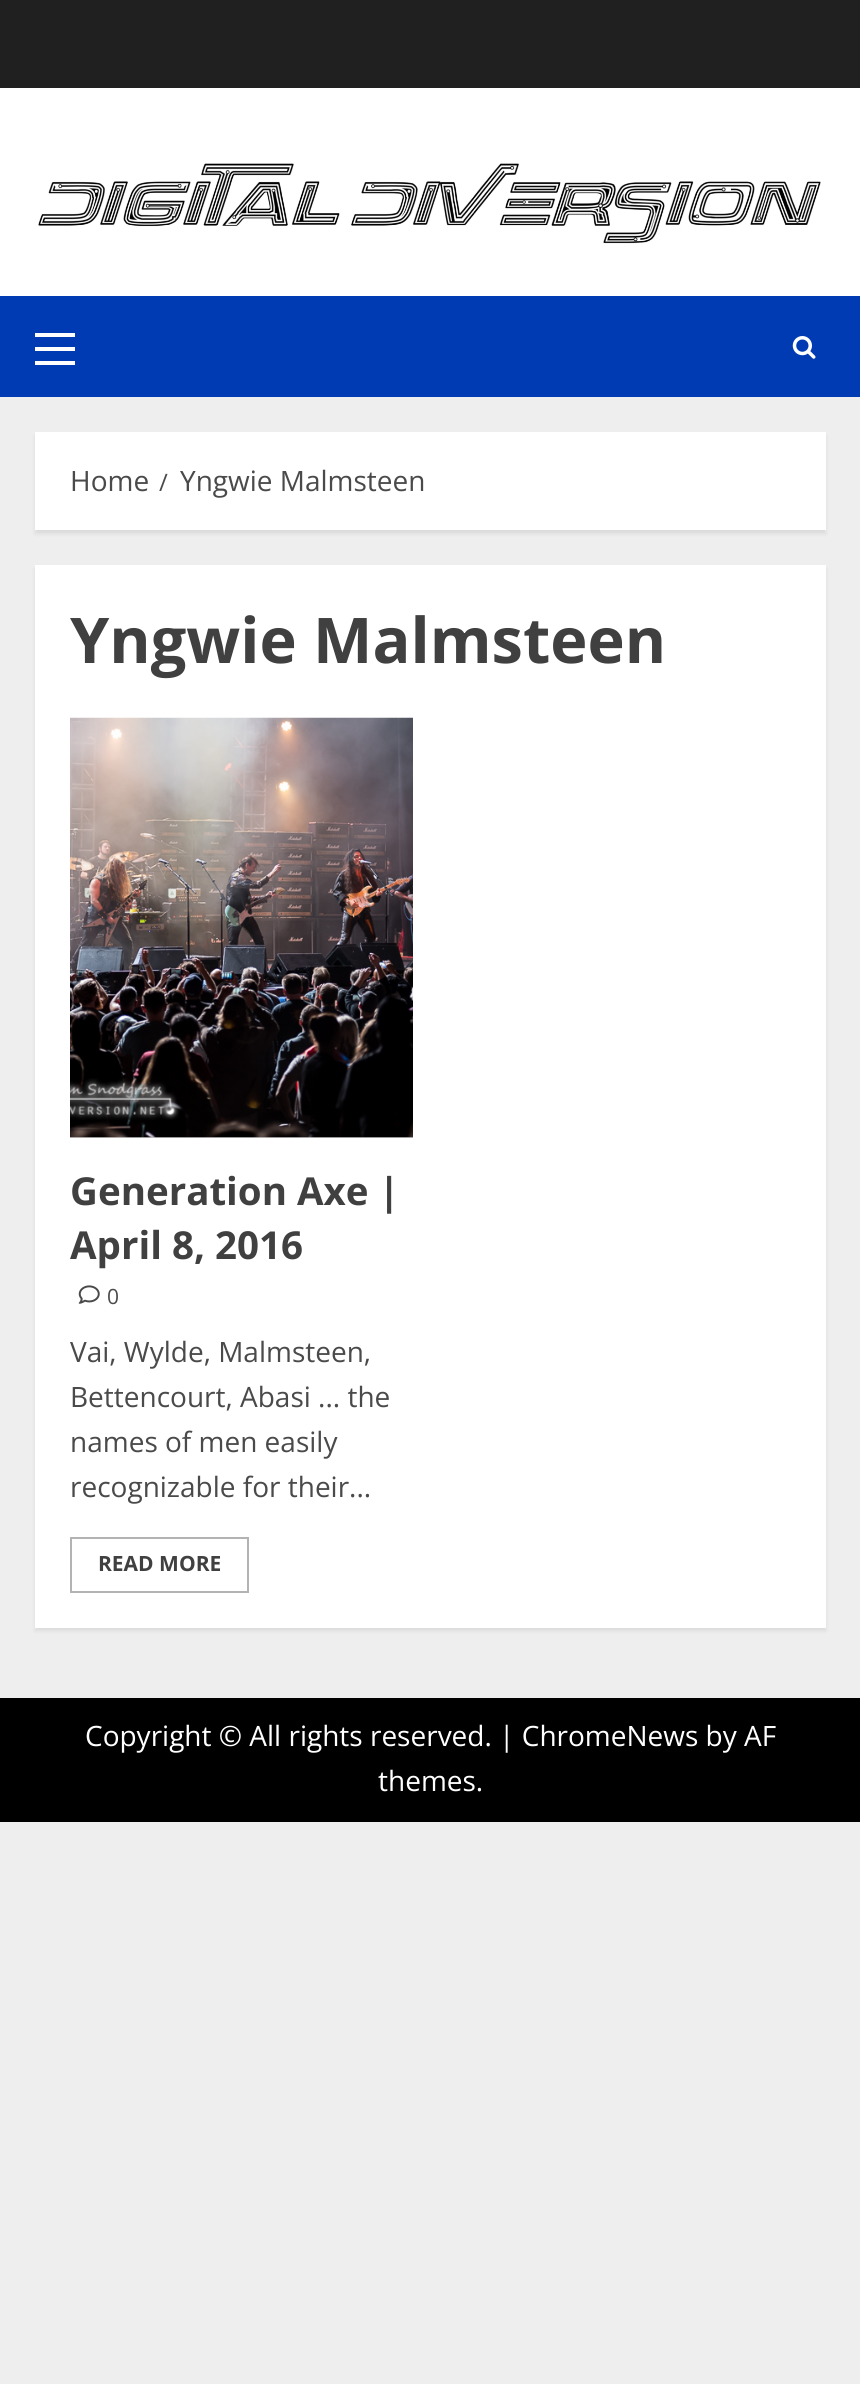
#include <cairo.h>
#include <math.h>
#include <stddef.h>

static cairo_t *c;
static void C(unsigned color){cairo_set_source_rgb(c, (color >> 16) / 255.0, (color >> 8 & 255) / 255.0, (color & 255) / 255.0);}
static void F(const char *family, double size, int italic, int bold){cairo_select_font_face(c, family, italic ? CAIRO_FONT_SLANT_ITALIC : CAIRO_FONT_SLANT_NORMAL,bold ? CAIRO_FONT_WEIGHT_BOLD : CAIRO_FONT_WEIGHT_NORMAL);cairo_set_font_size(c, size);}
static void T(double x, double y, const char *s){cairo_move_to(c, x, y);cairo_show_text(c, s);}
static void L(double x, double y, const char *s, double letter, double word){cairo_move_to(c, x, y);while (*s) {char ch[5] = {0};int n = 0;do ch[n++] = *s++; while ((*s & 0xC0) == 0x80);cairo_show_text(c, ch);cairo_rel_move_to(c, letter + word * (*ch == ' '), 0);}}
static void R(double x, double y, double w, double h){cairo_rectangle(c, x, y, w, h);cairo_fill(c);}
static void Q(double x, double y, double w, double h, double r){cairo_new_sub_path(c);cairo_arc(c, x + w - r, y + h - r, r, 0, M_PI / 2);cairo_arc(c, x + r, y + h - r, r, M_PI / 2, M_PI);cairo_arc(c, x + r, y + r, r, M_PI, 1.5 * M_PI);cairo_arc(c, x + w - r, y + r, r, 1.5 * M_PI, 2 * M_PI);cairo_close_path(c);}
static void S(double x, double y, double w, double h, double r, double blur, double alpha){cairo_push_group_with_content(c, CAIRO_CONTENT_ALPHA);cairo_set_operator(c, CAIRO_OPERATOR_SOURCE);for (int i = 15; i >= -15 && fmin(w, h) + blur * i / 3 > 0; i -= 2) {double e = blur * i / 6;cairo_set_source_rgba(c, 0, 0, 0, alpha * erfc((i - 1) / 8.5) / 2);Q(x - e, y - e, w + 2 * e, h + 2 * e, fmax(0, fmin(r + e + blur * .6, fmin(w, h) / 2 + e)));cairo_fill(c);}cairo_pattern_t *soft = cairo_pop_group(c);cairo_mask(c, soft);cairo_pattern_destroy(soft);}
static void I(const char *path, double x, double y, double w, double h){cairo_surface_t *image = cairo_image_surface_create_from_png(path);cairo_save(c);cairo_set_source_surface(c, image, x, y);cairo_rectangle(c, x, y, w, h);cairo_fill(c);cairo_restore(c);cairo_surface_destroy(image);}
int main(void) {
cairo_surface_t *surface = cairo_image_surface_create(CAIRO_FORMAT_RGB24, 860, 2384);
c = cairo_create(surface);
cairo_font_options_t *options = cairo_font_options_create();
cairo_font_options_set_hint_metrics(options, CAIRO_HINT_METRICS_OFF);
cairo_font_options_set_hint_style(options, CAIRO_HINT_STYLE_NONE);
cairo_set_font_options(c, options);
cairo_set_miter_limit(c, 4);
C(0xeeeeee);
cairo_paint(c);
C(0x202020);
R(0,0,860,88);
C(0xffffff);
R(0,88,860,208);
I("1.png",38,163,783,81);
C(0x003bb3);
R(0,296,860,101);
C(0xffffff);
R(35,347,40,4);
R(35,333,40,4);
R(35,361,40,4);
I("2.png",792,336,24,23);
C(0x000000);
S(35,436,791,98,0,2,.08);
C(0xffffff);
R(35,432,791,98);
F("Open Sans",28,0,0);
C(0x4a4a4a);
T(70,491,"Home");
F("Open Sans",24,0,0);
T(159,491,"/");
F("Open Sans",28,0,0);
T(180,491,"Yngwie Malmsteen");
C(0x000000);
S(35,569,791,1062,0,2,.08);
C(0xffffff);
R(35,565,791,1063);
F("Open Sans",63,0,1);
C(0x404040);
T(70,663,"Yngwie Malmsteen");
C(0xcccccc);
R(70,1137,343,1);
I("3.png",70,717,343,421);
F("Open Sans",38.5,0,1);
C(0x404040);
T(70,1205,"Generation Axe |");
T(70,1259,"April 8, 2016");
I("4.png",78,1285,22,19);
F("Open Sans",21,0,0);
C(0x4a4a4a);
L(107,1304,"0",1,0);
F("Open Sans",28,0,0);
T(70,1362,"Vai, Wylde, Malmsteen,");
T(70,1407,"Bettencourt, Abasi ... the");
T(70,1452,"names of men easily");
T(70,1497,"recognizable for their...");
cairo_rectangle(c,71,1538,177,54);
C(0xb3b3b3);
cairo_stroke(c);
F("Open Sans",21,0,1);
C(0x404040);
T(98,1571,"READ MORE");
C(0x000000);
R(0,1698,860,124);
F("Open Sans",28,0,0);
C(0xffffff);
T(85,1746,"Copyright © All rights reserved. | ChromeNews by AF");
T(378,1791,"themes.");
cairo_surface_write_to_png(surface, "o.png");
cairo_font_options_destroy(options);
cairo_destroy(c);
cairo_surface_destroy(surface);
return 0;
}
